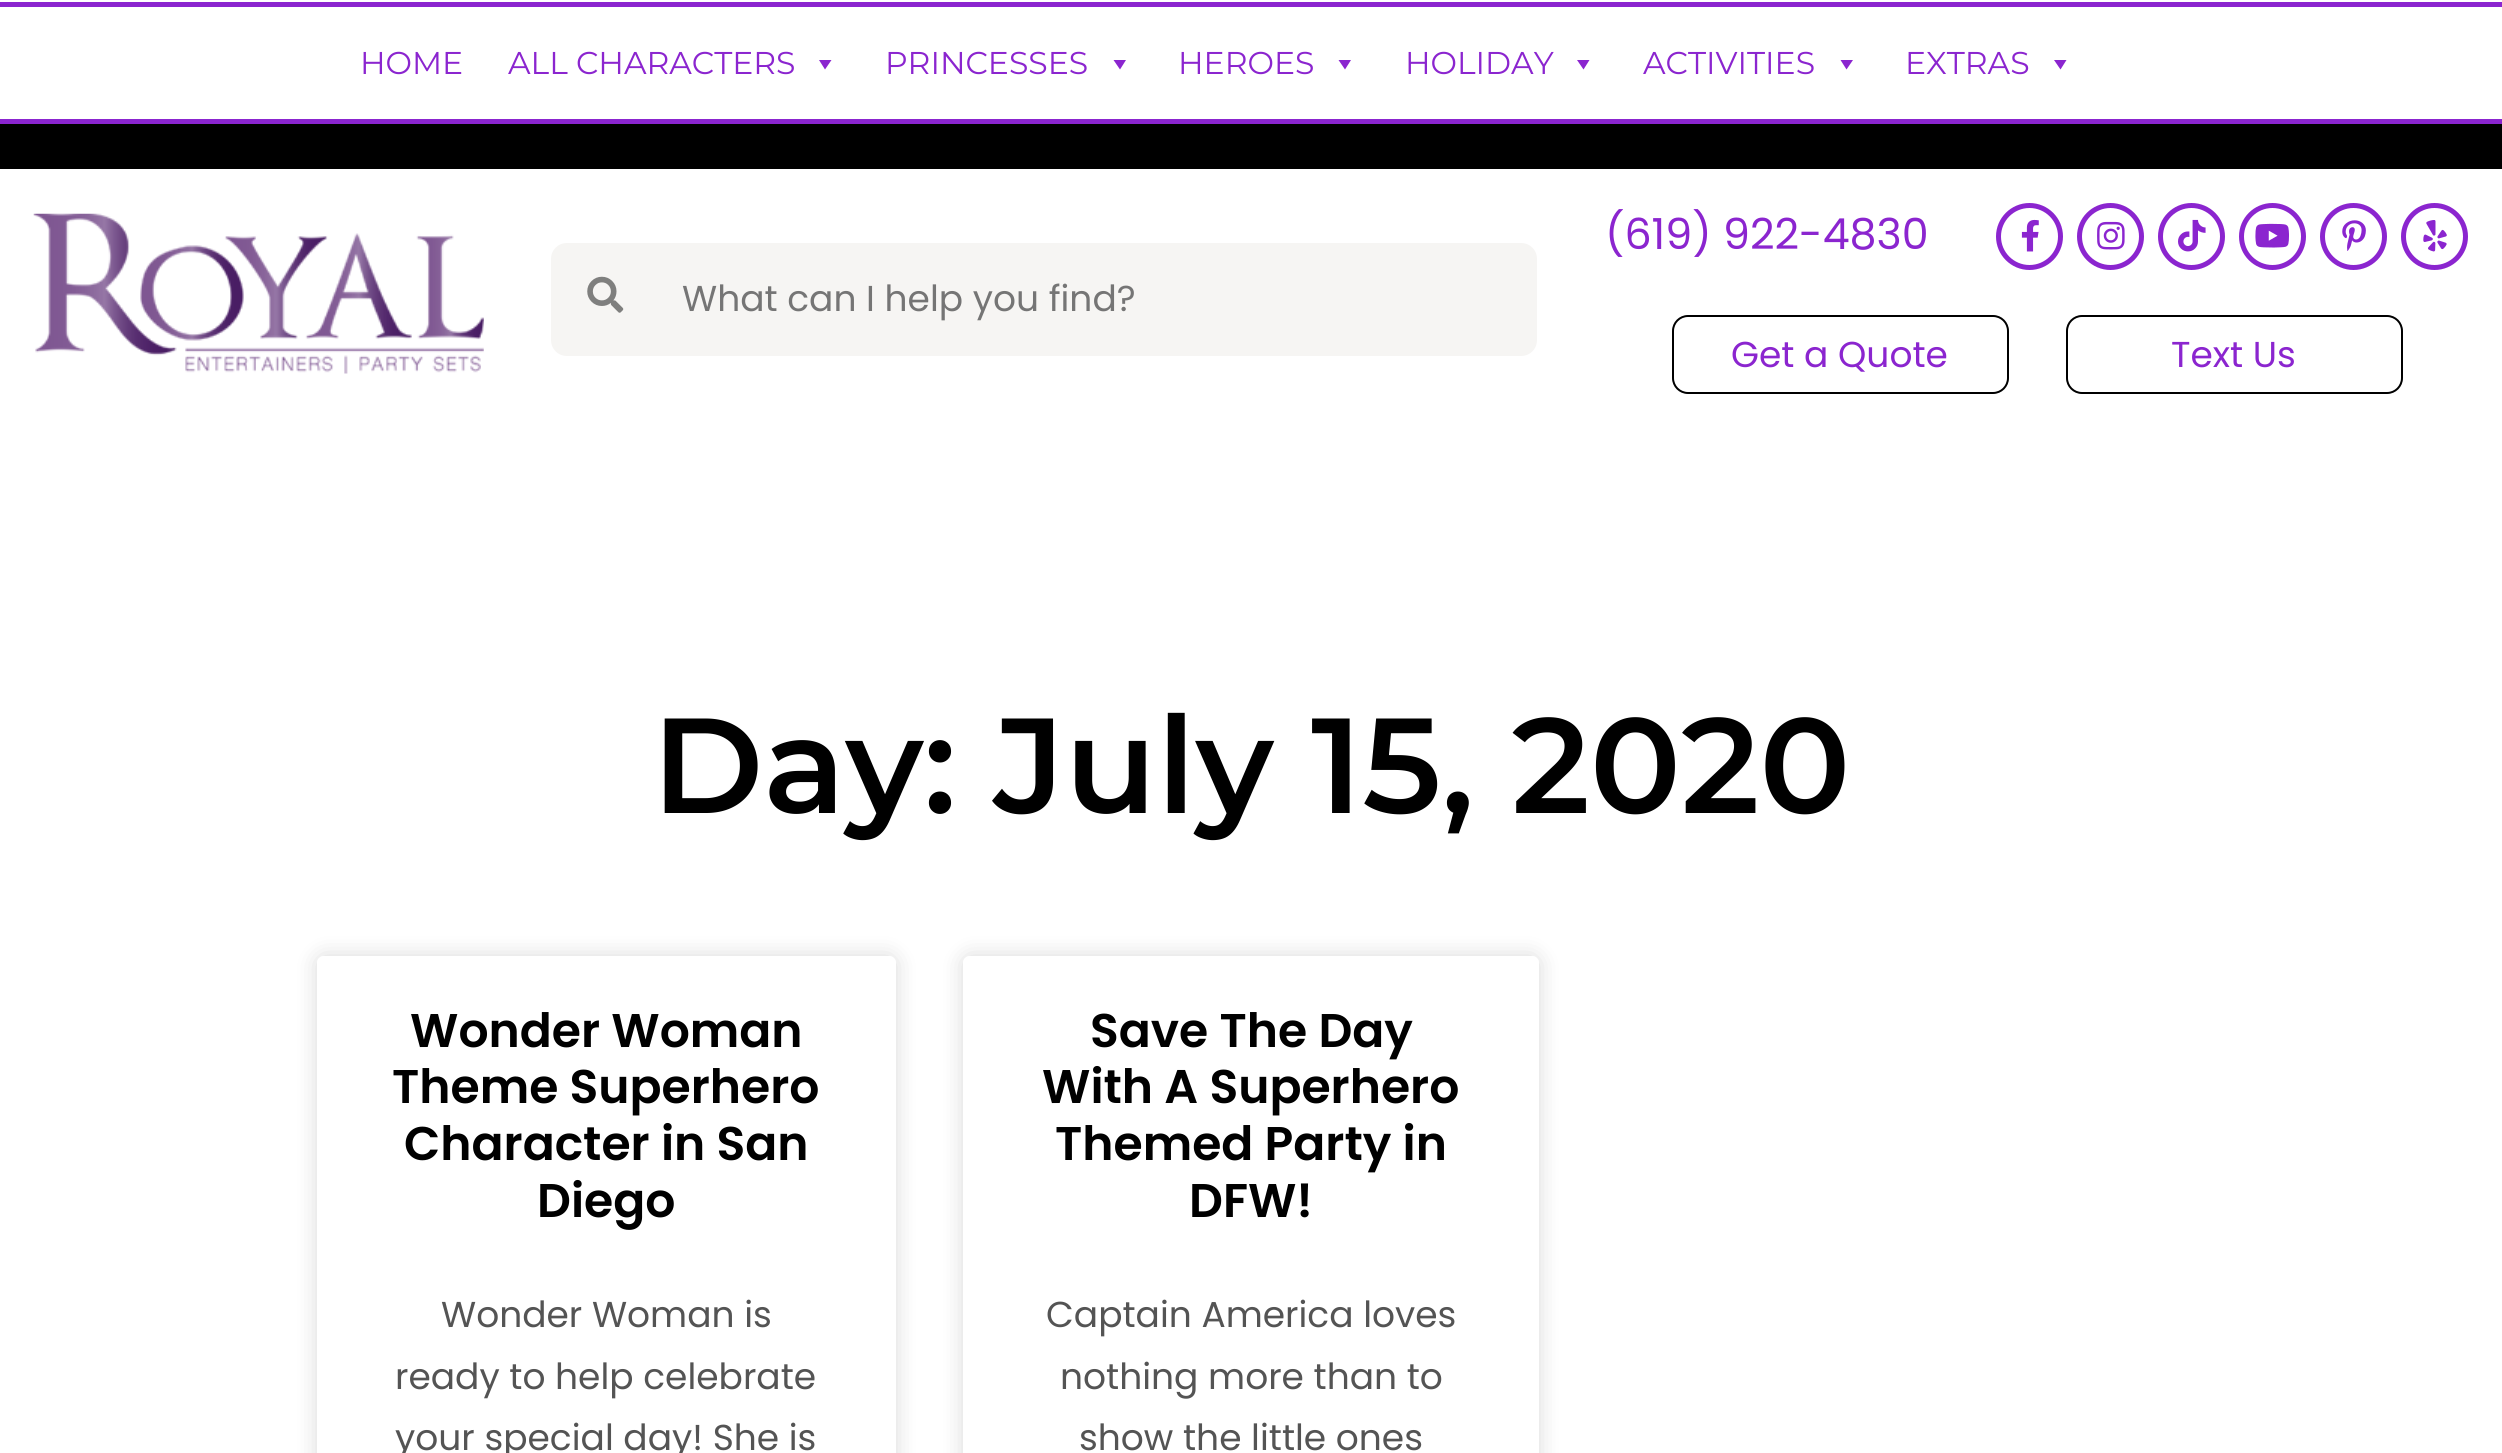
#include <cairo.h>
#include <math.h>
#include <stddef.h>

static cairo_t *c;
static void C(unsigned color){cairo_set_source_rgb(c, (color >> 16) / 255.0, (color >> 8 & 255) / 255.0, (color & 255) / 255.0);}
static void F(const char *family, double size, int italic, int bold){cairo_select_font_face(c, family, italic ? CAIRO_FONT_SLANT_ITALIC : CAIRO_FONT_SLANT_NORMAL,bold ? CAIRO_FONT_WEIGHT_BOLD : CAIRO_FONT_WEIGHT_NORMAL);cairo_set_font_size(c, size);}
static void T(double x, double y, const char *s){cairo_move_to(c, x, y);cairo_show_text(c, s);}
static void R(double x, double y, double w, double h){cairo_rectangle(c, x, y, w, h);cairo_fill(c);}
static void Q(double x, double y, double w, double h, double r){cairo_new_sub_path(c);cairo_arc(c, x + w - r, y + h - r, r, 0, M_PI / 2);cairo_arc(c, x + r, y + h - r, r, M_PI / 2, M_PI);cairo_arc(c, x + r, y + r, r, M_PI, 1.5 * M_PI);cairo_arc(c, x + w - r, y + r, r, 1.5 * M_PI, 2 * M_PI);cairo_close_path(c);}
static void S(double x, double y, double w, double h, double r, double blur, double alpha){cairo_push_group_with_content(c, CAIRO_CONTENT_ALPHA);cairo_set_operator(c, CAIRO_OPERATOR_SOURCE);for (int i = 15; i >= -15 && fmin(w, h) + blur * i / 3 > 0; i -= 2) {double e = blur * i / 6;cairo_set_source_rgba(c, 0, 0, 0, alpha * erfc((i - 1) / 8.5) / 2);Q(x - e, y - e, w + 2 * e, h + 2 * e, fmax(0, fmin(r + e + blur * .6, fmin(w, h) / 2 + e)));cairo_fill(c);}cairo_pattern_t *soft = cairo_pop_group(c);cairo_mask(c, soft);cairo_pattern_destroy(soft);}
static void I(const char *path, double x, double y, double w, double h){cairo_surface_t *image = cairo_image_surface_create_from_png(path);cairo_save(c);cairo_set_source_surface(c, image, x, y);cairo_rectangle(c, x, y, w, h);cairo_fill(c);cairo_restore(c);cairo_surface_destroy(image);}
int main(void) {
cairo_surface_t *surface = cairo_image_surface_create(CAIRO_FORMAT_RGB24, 2502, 1453);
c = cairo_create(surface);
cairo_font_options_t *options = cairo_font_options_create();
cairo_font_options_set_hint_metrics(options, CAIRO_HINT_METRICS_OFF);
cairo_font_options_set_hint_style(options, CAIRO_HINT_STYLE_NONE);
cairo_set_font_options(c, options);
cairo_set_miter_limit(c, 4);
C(0xffffff);
cairo_paint(c);
C(0x000000);
R(0,124,2502,45);
C(0x8b25cf);
R(0,2,2502,5);
R(0,119,2502,5);
F("Montserrat",31.5,0,0);
T(360,74,"HOME");
T(508,74,"ALL CHARACTERS");
cairo_new_path(c);
cairo_move_to(c,831.5,60);
cairo_line_to(c,825,69.5);
cairo_line_to(c,819,60);
cairo_close_path(c);
cairo_fill(c);
T(885,74,"PRINCESSES");
cairo_new_path(c);
cairo_move_to(c,1126,60);
cairo_line_to(c,1120,69.5);
cairo_line_to(c,1113.5,60);
cairo_close_path(c);
cairo_fill(c);
T(1178,74,"HEROES");
cairo_new_path(c);
cairo_move_to(c,1351,60);
cairo_line_to(c,1345,69.5);
cairo_line_to(c,1338.5,60);
cairo_close_path(c);
cairo_fill(c);
T(1405,74,"HOLIDAY");
cairo_new_path(c);
cairo_move_to(c,1589.5,60);
cairo_line_to(c,1583.5,69.5);
cairo_line_to(c,1577,60);
cairo_close_path(c);
cairo_fill(c);
T(1643,74,"ACTIVITIES");
cairo_new_path(c);
cairo_move_to(c,1853,60);
cairo_line_to(c,1846.5,69.5);
cairo_line_to(c,1840.5,60);
cairo_close_path(c);
cairo_fill(c);
T(1905,74,"EXTRAS");
cairo_new_path(c);
cairo_move_to(c,2066.5,60);
cairo_line_to(c,2060.5,69.5);
cairo_line_to(c,2054,60);
cairo_close_path(c);
cairo_fill(c);
I("1.png",33,213,451,161);
C(0xf6f5f3);
cairo_new_path(c);
cairo_move_to(c,567,243);
cairo_line_to(c,657,243);
cairo_line_to(c,657,356);
cairo_line_to(c,567,356);
cairo_curve_to(c,558,356,551,349,551,340);
cairo_line_to(c,551,259);
cairo_curve_to(c,551,250,558,243,567,243);
cairo_close_path(c);
cairo_fill(c);
I("2.png",587,276,37,37);
cairo_new_path(c);
cairo_move_to(c,657,243);
cairo_line_to(c,1521,243);
cairo_curve_to(c,1530,243,1537,250,1537,259);
cairo_line_to(c,1537,340);
cairo_curve_to(c,1537,349,1530,356,1521,356);
cairo_line_to(c,657,356);
cairo_close_path(c);
cairo_fill(c);
F("Poppins",36,0,0);
C(0x757575);
T(682,311,"What can I help you find?");
F("Poppins",42.75,0,0);
C(0x8b25cf);
T(1605,249,"(619) 922-4830");
cairo_new_path(c);
cairo_arc(c,2029.5,236.5,31,0,2 * M_PI);
cairo_set_line_width(c,5);
cairo_stroke(c);
I("3.png",2021,219,18,33);
cairo_arc(c,2110.5,236.5,31,0,2 * M_PI);
cairo_stroke(c);
I("4.png",2097,221,28,29);
cairo_arc(c,2191.5,236.5,31,0,2 * M_PI);
cairo_stroke(c);
I("5.png",2178,219,28,33);
cairo_arc(c,2272.5,236.5,31,0,2 * M_PI);
cairo_stroke(c);
I("6.png",2255,223,34,25);
cairo_arc(c,2353.5,236.5,31,0,2 * M_PI);
cairo_stroke(c);
I("7.png",2342,220,24,31);
cairo_arc(c,2434.5,236.5,31,0,2 * M_PI);
cairo_stroke(c);
I("8.png",2423,220,24,32);
Q(1673,316,335,77,15);
C(0x000000);
cairo_set_line_width(c,2);
cairo_stroke(c);
F("Poppins",36,0,0);
C(0x8b25cf);
T(1731,367,"Get a Quote");
Q(2067,316,335,77,15);
C(0x000000);
cairo_stroke(c);
C(0x8b25cf);
T(2171,367,"Text Us");
F("Montserrat SemiBold",135,0,0);
C(0x000000);
T(652,813,"Day: July 15, 2020");
cairo_save(c);
cairo_set_fill_rule(c,CAIRO_FILL_RULE_EVEN_ODD);
cairo_new_path(c);
cairo_move_to(c,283,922);
cairo_line_to(c,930,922);
cairo_line_to(c,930,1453);
cairo_line_to(c,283,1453);
cairo_close_path(c);
cairo_move_to(c,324,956);
cairo_line_to(c,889,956);
cairo_curve_to(c,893,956,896,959,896,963);
cairo_line_to(c,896,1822);
cairo_curve_to(c,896,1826,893,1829,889,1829);
cairo_line_to(c,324,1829);
cairo_curve_to(c,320,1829,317,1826,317,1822);
cairo_line_to(c,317,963);
cairo_curve_to(c,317,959,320,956,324,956);
cairo_close_path(c);
cairo_clip(c);
C(0x000000);
S(317,956,579,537,7,11,.15);
cairo_restore(c);
F("Poppins SemiBold",47.25,0,0);
T(410,1047,"Wonder Woman");
T(392,1103,"Theme Superhero");
T(404,1160,"Character in San");
T(537,1217,"Diego");
F("Poppins",36,0,0);
C(0x545454);
T(441,1327,"Wonder Woman is");
T(395,1389,"ready to help celebrate");
T(395,1450,"your special day! She is");
cairo_save(c);
cairo_set_fill_rule(c,CAIRO_FILL_RULE_EVEN_ODD);
cairo_new_path(c);
cairo_move_to(c,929,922);
cairo_line_to(c,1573,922);
cairo_line_to(c,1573,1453);
cairo_line_to(c,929,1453);
cairo_close_path(c);
cairo_move_to(c,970,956);
cairo_line_to(c,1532,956);
cairo_curve_to(c,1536,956,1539,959,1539,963);
cairo_line_to(c,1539,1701);
cairo_curve_to(c,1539,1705,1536,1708,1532,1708);
cairo_line_to(c,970,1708);
cairo_curve_to(c,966,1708,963,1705,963,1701);
cairo_line_to(c,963,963);
cairo_curve_to(c,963,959,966,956,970,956);
cairo_close_path(c);
cairo_clip(c);
C(0x000000);
S(963,956,576,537,7,11,.15);
cairo_restore(c);
F("Poppins SemiBold",47.25,0,0);
C(0x000000);
T(1090,1047,"Save The Day");
T(1042,1103,"With A Superhero");
T(1055,1160,"Themed Party in");
T(1189,1217,"DFW!");
F("Poppins",36,0,0);
C(0x545454);
T(1046,1327,"Captain America loves");
T(1060,1389,"nothing more than to");
T(1079,1450,"show the little ones");
cairo_surface_write_to_png(surface, "o.png");
cairo_font_options_destroy(options);
cairo_destroy(c);
cairo_surface_destroy(surface);
return 0;
}
